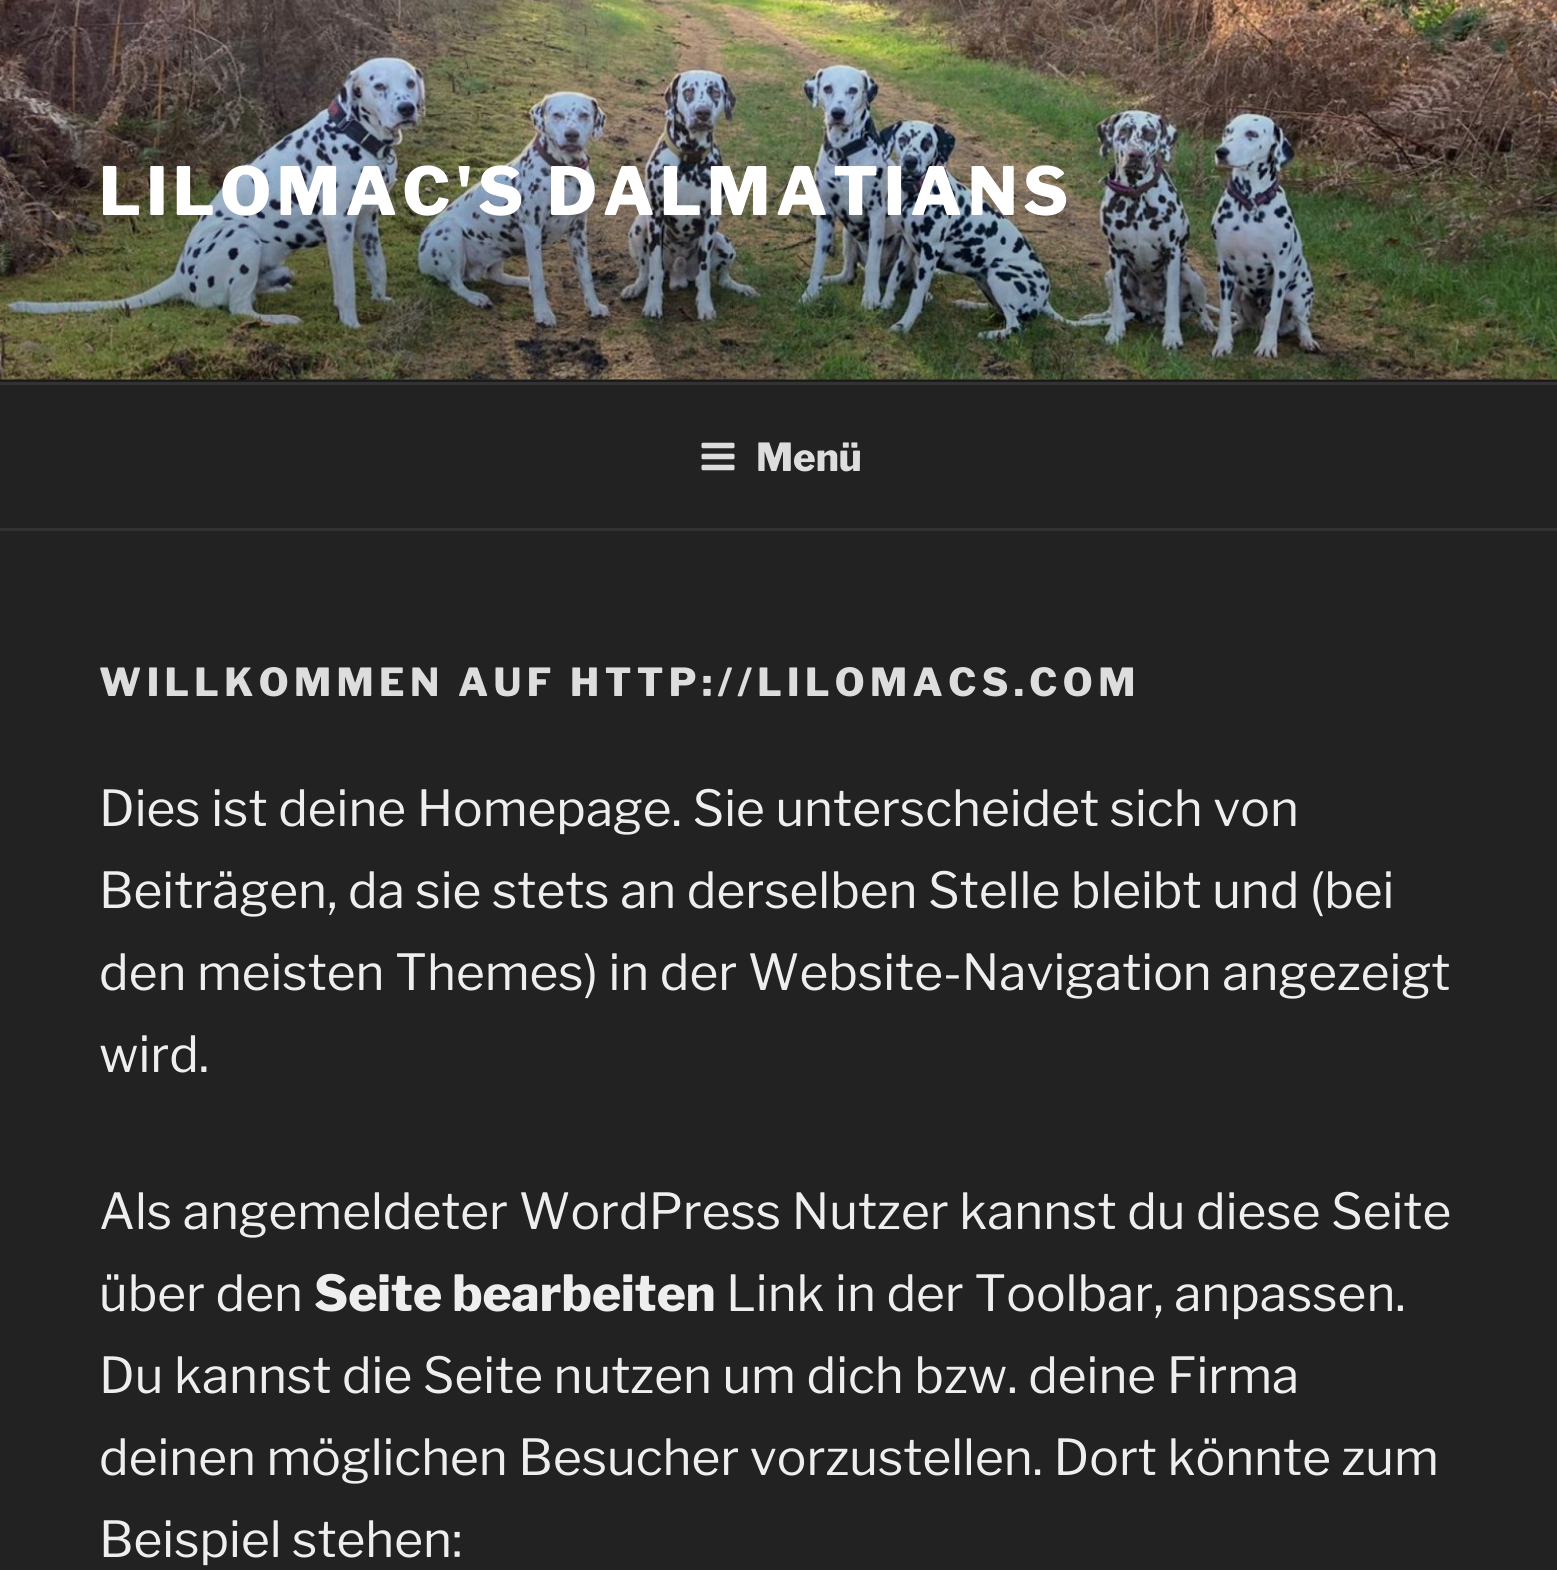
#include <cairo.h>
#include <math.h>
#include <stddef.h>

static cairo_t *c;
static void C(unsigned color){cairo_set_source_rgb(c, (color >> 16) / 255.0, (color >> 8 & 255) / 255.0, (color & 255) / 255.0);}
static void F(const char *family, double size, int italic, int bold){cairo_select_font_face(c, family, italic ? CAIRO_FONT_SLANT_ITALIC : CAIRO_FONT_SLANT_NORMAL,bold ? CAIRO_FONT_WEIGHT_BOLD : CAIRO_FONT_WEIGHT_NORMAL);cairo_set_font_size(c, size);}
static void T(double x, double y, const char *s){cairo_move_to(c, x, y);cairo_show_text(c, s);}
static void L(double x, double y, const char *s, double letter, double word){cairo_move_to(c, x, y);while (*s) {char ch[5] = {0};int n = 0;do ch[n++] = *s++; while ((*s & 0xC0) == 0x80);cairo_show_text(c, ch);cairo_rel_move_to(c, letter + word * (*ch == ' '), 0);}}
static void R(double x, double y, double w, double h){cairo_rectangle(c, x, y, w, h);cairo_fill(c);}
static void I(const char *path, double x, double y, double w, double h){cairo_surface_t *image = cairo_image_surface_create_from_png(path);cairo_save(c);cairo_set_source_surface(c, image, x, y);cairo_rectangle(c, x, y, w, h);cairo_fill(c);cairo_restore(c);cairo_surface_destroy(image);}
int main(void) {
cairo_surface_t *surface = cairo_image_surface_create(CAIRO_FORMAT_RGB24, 1557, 1570);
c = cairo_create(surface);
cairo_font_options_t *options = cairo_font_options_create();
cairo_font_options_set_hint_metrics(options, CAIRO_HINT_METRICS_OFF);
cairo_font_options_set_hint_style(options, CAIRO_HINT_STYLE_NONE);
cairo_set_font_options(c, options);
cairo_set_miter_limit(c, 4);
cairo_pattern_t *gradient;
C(0x222222);
cairo_paint(c);
C(0x262626);
R(0,379,1557,3);
I("1.png",0,0,1557,380);
gradient = cairo_pattern_create_linear(780,0,780,382);
cairo_pattern_add_color_stop_rgba(gradient,0,0,0,0,0);
cairo_pattern_add_color_stop_rgba(gradient,.75,0,0,0,.3);
cairo_pattern_add_color_stop_rgba(gradient,1,0,0,0,.3);
cairo_set_source(c,gradient);
cairo_pattern_destroy(gradient);
R(0,21,1557,361);
F("Libre Franklin ExtraBold",66,0,0);
C(0xffffff);
L(99,215,"LILOMAC'S DALMATIANS",5.25,0);
C(0x333333);
R(0,382,1557,3);
R(0,528,1557,3);
I("2.png",701,442,34,29);
F("Libre Franklin ExtraBold",38.5,0,0);
C(0xdddddd);
T(756,471,"Menü");
L(99,696,"WILLKOMMEN AUF HTTP://LILOMACS.COM",5.4,0);
F("Libre Franklin",49.5,0,0);
C(0xeeeeee);
T(99,826,"Dies ist deine Homepage. Sie unterscheidet sich von");
T(99,908,"Beiträgen, da sie stets an derselben Stelle bleibt und (bei");
T(99,990,"den meisten Themes) in der Website-Navigation angezeigt");
T(99,1072,"wird.");
T(99,1229,"Als angemeldeter WordPress Nutzer kannst du diese Seite");
T(99,1311,"über den");
F("Libre Franklin ExtraBold",49.5,0,0);
T(314,1311,"Seite bearbeiten");
F("Libre Franklin",49.5,0,0);
T(726,1311,"Link in der Toolbar, anpassen.");
T(99,1393,"Du kannst die Seite nutzen um dich bzw. deine Firma");
T(99,1475,"deinen möglichen Besucher vorzustellen. Dort könnte zum");
T(99,1557,"Beispiel stehen:");
cairo_surface_write_to_png(surface, "o.png");
cairo_font_options_destroy(options);
cairo_destroy(c);
cairo_surface_destroy(surface);
return 0;
}
